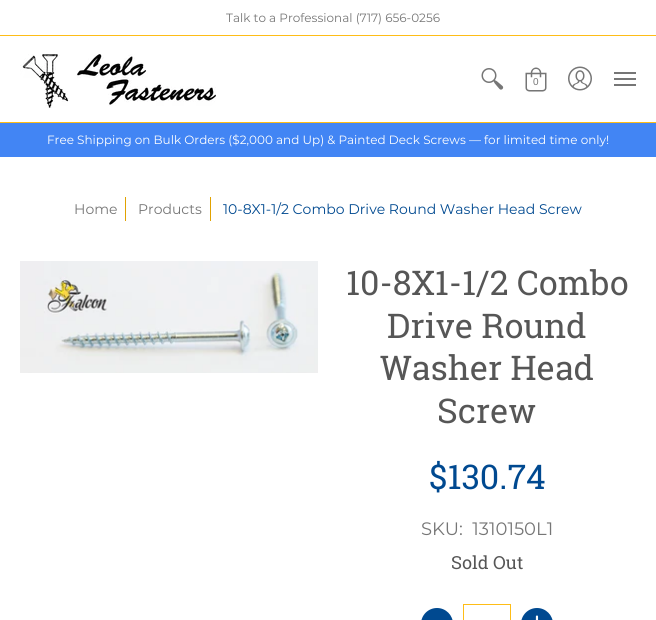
#include <cairo.h>
#include <math.h>
#include <stddef.h>

static cairo_t *c;
static void C(unsigned color){cairo_set_source_rgb(c, (color >> 16) / 255.0, (color >> 8 & 255) / 255.0, (color & 255) / 255.0);}
static void F(const char *family, double size, int italic, int bold){cairo_select_font_face(c, family, italic ? CAIRO_FONT_SLANT_ITALIC : CAIRO_FONT_SLANT_NORMAL,bold ? CAIRO_FONT_WEIGHT_BOLD : CAIRO_FONT_WEIGHT_NORMAL);cairo_set_font_size(c, size);}
static void T(double x, double y, const char *s){cairo_move_to(c, x, y);cairo_show_text(c, s);}
static void R(double x, double y, double w, double h){cairo_rectangle(c, x, y, w, h);cairo_fill(c);}
static void Q(double x, double y, double w, double h, double r){cairo_new_sub_path(c);cairo_arc(c, x + w - r, y + h - r, r, 0, M_PI / 2);cairo_arc(c, x + r, y + h - r, r, M_PI / 2, M_PI);cairo_arc(c, x + r, y + r, r, M_PI, 1.5 * M_PI);cairo_arc(c, x + w - r, y + r, r, 1.5 * M_PI, 2 * M_PI);cairo_close_path(c);}
static void I(const char *path, double x, double y, double w, double h){cairo_surface_t *image = cairo_image_surface_create_from_png(path);cairo_save(c);cairo_set_source_surface(c, image, x, y);cairo_rectangle(c, x, y, w, h);cairo_fill(c);cairo_restore(c);cairo_surface_destroy(image);}
int main(void) {
cairo_surface_t *surface = cairo_image_surface_create(CAIRO_FORMAT_RGB24, 656, 620);
c = cairo_create(surface);
cairo_font_options_t *options = cairo_font_options_create();
cairo_font_options_set_hint_metrics(options, CAIRO_HINT_METRICS_OFF);
cairo_font_options_set_hint_style(options, CAIRO_HINT_STYLE_NONE);
cairo_set_font_options(c, options);
cairo_set_miter_limit(c, 4);
C(0xffffff);
cairo_paint(c);
C(0xfebd17);
R(0,35,656,1);
F("Montserrat",12,0,0);
C(0x767676);
T(226,22,"Talk to a Professional (717) 656-0256");
C(0xfebd17);
R(0,122,656,1);
I("1.png",20,54,196,54);
I("2.png",481,68,23,22);
I("3.png",525,67,22,25);
F("Liberation Sans",10,0,0);
C(0x767676);
T(533,85,"0");
I("4.png",568,66,24,25);
R(614,72,22,2);
R(614,84,22,2);
R(614,78,22,2);
C(0x4285f4);
R(0,123,656,34);
F("Montserrat",12,0,0);
C(0xffffff);
T(47,144,"Free Shipping on Bulk Orders ($2,000 and Up) & Painted Deck Screws — for limited time only!");
F("Montserrat",14,0,0);
C(0x767676);
T(74,214,"Home");
C(0xe1a201);
R(125,197,1,24);
C(0x767676);
T(138,214,"Products");
C(0xe1a201);
R(210,197,1,24);
C(0x004990);
T(223,214,"10-8X1-1/2 Combo Drive Round Washer Head Screw");
I("5.png",20,261,298,112);
F("Roboto Slab",34,0,0);
C(0x565656);
T(346,295,"10-8X1-1/2 Combo");
T(387,338,"Drive Round");
T(380,380,"Washer Head");
T(437,423,"Screw");
C(0x004990);
T(429,489,"$130.74");
F("Montserrat",18,0,0);
C(0x767676);
T(421,535,"SKU:  1310150L1");
F("Roboto Slab",18,0,0);
C(0x565656);
T(451,569,"Sold Out");
C(0x004990);
Q(421,608,32,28,16);
cairo_fill(c);
cairo_rectangle(c,463.5,604.5,47,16);
C(0xfebd17);
cairo_set_line_width(c,1);
cairo_stroke(c);
C(0x004990);
Q(521,608,32,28,16);
cairo_fill(c);
I("6.png",535,615,4,5);
cairo_surface_write_to_png(surface, "o.png");
cairo_font_options_destroy(options);
cairo_destroy(c);
cairo_surface_destroy(surface);
return 0;
}
